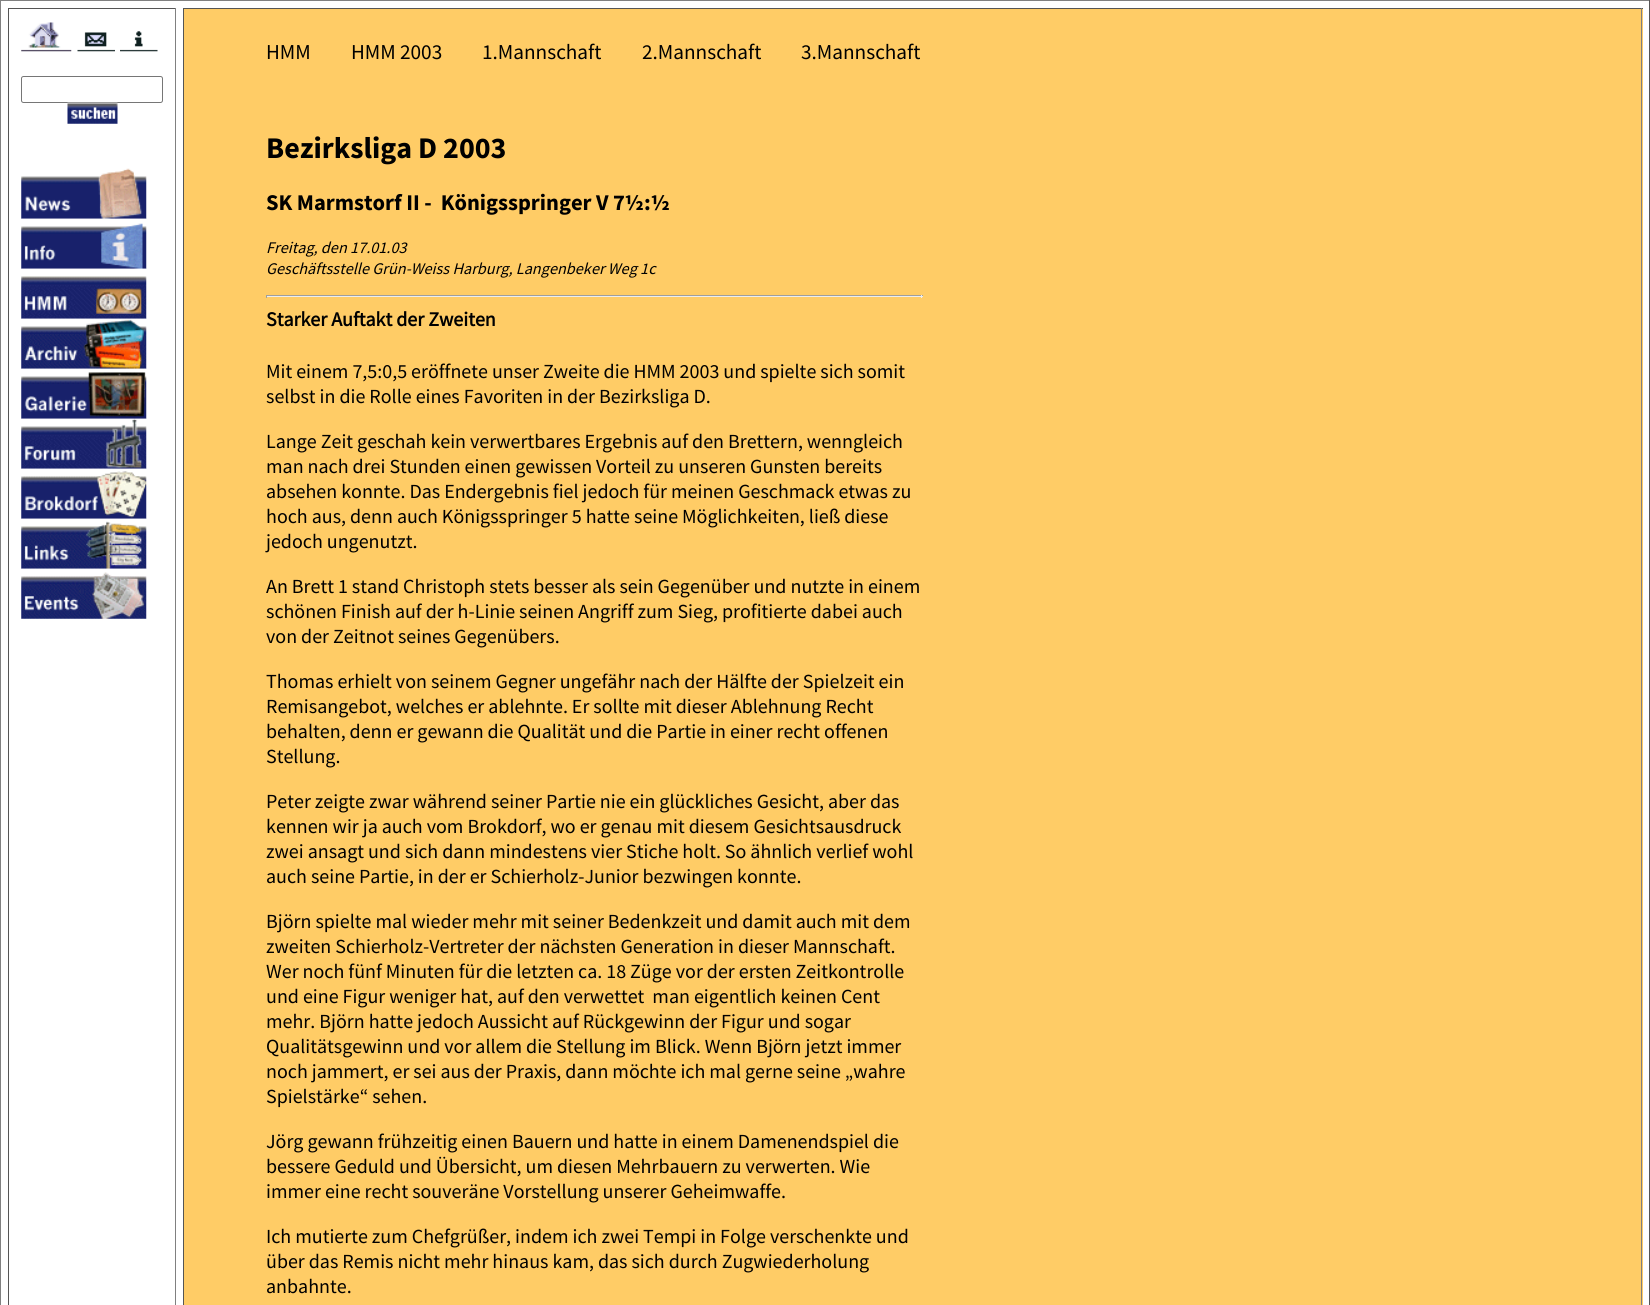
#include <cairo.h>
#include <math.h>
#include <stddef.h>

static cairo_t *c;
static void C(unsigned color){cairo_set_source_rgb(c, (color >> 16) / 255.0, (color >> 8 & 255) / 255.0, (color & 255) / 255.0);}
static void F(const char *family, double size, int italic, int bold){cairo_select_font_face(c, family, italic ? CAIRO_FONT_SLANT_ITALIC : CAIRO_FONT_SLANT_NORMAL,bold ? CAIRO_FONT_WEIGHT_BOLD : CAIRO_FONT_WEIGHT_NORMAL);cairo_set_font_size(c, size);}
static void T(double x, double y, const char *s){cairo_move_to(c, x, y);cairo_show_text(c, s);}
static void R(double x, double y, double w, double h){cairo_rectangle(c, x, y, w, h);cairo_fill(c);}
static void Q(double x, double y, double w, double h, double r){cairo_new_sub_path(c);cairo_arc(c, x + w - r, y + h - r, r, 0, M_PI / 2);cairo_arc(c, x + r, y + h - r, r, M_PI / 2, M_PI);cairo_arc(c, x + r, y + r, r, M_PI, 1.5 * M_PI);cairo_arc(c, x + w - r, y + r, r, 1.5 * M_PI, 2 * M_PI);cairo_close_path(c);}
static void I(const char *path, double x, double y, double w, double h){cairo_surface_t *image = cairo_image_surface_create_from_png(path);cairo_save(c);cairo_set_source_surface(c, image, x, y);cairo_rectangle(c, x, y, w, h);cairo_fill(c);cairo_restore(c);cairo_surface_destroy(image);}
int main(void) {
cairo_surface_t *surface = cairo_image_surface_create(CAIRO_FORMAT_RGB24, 1650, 1305);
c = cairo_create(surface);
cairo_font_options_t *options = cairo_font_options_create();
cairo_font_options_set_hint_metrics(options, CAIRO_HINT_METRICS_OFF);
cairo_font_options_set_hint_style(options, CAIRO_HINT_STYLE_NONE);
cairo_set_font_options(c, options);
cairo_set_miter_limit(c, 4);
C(0xffffff);
cairo_paint(c);
C(0x808080);
R(0,0,1650,1);
C(0x555555);
R(1649,0,1,1305);
C(0x808080);
R(0,0,1,1305);
C(0x555555);
R(8,8,168,1);
C(0x808080);
R(175,8,1,1297);
C(0x555555);
R(8,8,1,1297);
I("1.png",21,22,51,30);
I("2.png",77,32,38,20);
I("3.png",120,31,38,21);
Q(21.5,76.5,141,26,2);
C(0x767676);
cairo_set_line_width(c,1);
cairo_stroke(c);
I("4.png",67,102,51,22);
I("5.png",21,168,126,51);
I("6.png",21,218,126,51);
I("7.png",21,268,126,51);
I("8.png",21,318,126,51);
I("9.png",21,368,126,51);
I("10.png",21,418,126,51);
I("11.png",21,468,126,51);
I("12.png",21,518,126,51);
I("13.png",21,568,126,51);
C(0xffcc66);
R(184,9,1459,1296);
C(0x555555);
R(183,8,1460,1);
C(0x808080);
R(1641,8,1,1297);
C(0x555555);
R(183,8,1,1297);
F("Source Sans Pro",21.25,0,0);
C(0x000000);
T(266,59,"HMM");
T(351,59,"HMM 2003");
T(482,59,"1.Mannschaft");
T(642,59,"2.Mannschaft");
T(801,59,"3.Mannschaft");
F("Source Sans Pro",30,0,1);
T(266,158,"Bezirksliga D 2003");
F("Source Sans Pro",22.5,0,1);
T(266,210,"SK Marmstorf II -  Königsspringer V 7½:½");
F("Source Sans Pro",16.25,1,0);
T(266,253,"Freitag, den 17.01.03");
T(266,274,"Geschäftsstelle Grün-Weiss Harburg, Langenbeker Weg 1c");
C(0x9f9f9f);
R(266,295,657,1);
C(0xeeeeee);
R(921,295,1,3);
R(266,296,657,1);
C(0x9f9f9f);
R(266,295,1,3);
F("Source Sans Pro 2",20,0,1);
C(0x000000);
T(266,326,"Starker Auftakt der Zweiten");
F("Source Sans Pro",20,0,0);
T(266,378,"Mit einem 7,5:0,5 eröffnete unser Zweite die HMM 2003 und spielte sich somit");
T(266,403,"selbst in die Rolle eines Favoriten in der Bezirksliga D.");
T(266,448,"Lange Zeit geschah kein verwertbares Ergebnis auf den Brettern, wenngleich");
T(266,473,"man nach drei Stunden einen gewissen Vorteil zu unseren Gunsten bereits");
T(266,498,"absehen konnte. Das Endergebnis fiel jedoch für meinen Geschmack etwas zu");
T(266,523,"hoch aus, denn auch Königsspringer 5 hatte seine Möglichkeiten, ließ diese");
T(266,548,"jedoch ungenutzt.");
T(266,593,"An Brett 1 stand Christoph stets besser als sein Gegenüber und nutzte in einem");
T(266,618,"schönen Finish auf der h-Linie seinen Angriff zum Sieg, profitierte dabei auch");
T(266,643,"von der Zeitnot seines Gegenübers.");
T(266,688,"Thomas erhielt von seinem Gegner ungefähr nach der Hälfte der Spielzeit ein");
T(266,713,"Remisangebot, welches er ablehnte. Er sollte mit dieser Ablehnung Recht");
T(266,738,"behalten, denn er gewann die Qualität und die Partie in einer recht offenen");
T(266,763,"Stellung.");
T(266,808,"Peter zeigte zwar während seiner Partie nie ein glückliches Gesicht, aber das");
T(266,833,"kennen wir ja auch vom Brokdorf, wo er genau mit diesem Gesichtsausdruck");
T(266,858,"zwei ansagt und sich dann mindestens vier Stiche holt. So ähnlich verlief wohl");
T(266,883,"auch seine Partie, in der er Schierholz-Junior bezwingen konnte.");
T(266,928,"Björn spielte mal wieder mehr mit seiner Bedenkzeit und damit auch mit dem");
T(266,953,"zweiten Schierholz-Vertreter der nächsten Generation in dieser Mannschaft.");
T(266,978,"Wer noch fünf Minuten für die letzten ca. 18 Züge vor der ersten Zeitkontrolle");
T(266,1003,"und eine Figur weniger hat, auf den verwettet  man eigentlich keinen Cent");
T(266,1028,"mehr. Björn hatte jedoch Aussicht auf Rückgewinn der Figur und sogar");
T(266,1053,"Qualitätsgewinn und vor allem die Stellung im Blick. Wenn Björn jetzt immer");
T(266,1078,"noch jammert, er sei aus der Praxis, dann möchte ich mal gerne seine „wahre");
T(266,1103,"Spielstärke“ sehen.");
T(266,1148,"Jörg gewann frühzeitig einen Bauern und hatte in einem Damenendspiel die");
T(266,1173,"bessere Geduld und Übersicht, um diesen Mehrbauern zu verwerten. Wie");
T(266,1198,"immer eine recht souveräne Vorstellung unserer Geheimwaffe.");
T(266,1243,"Ich mutierte zum Chefgrüßer, indem ich zwei Tempi in Folge verschenkte und");
T(266,1268,"über das Remis nicht mehr hinaus kam, das sich durch Zugwiederholung");
T(266,1293,"anbahnte.");
cairo_surface_write_to_png(surface, "o.png");
cairo_font_options_destroy(options);
cairo_destroy(c);
cairo_surface_destroy(surface);
return 0;
}
